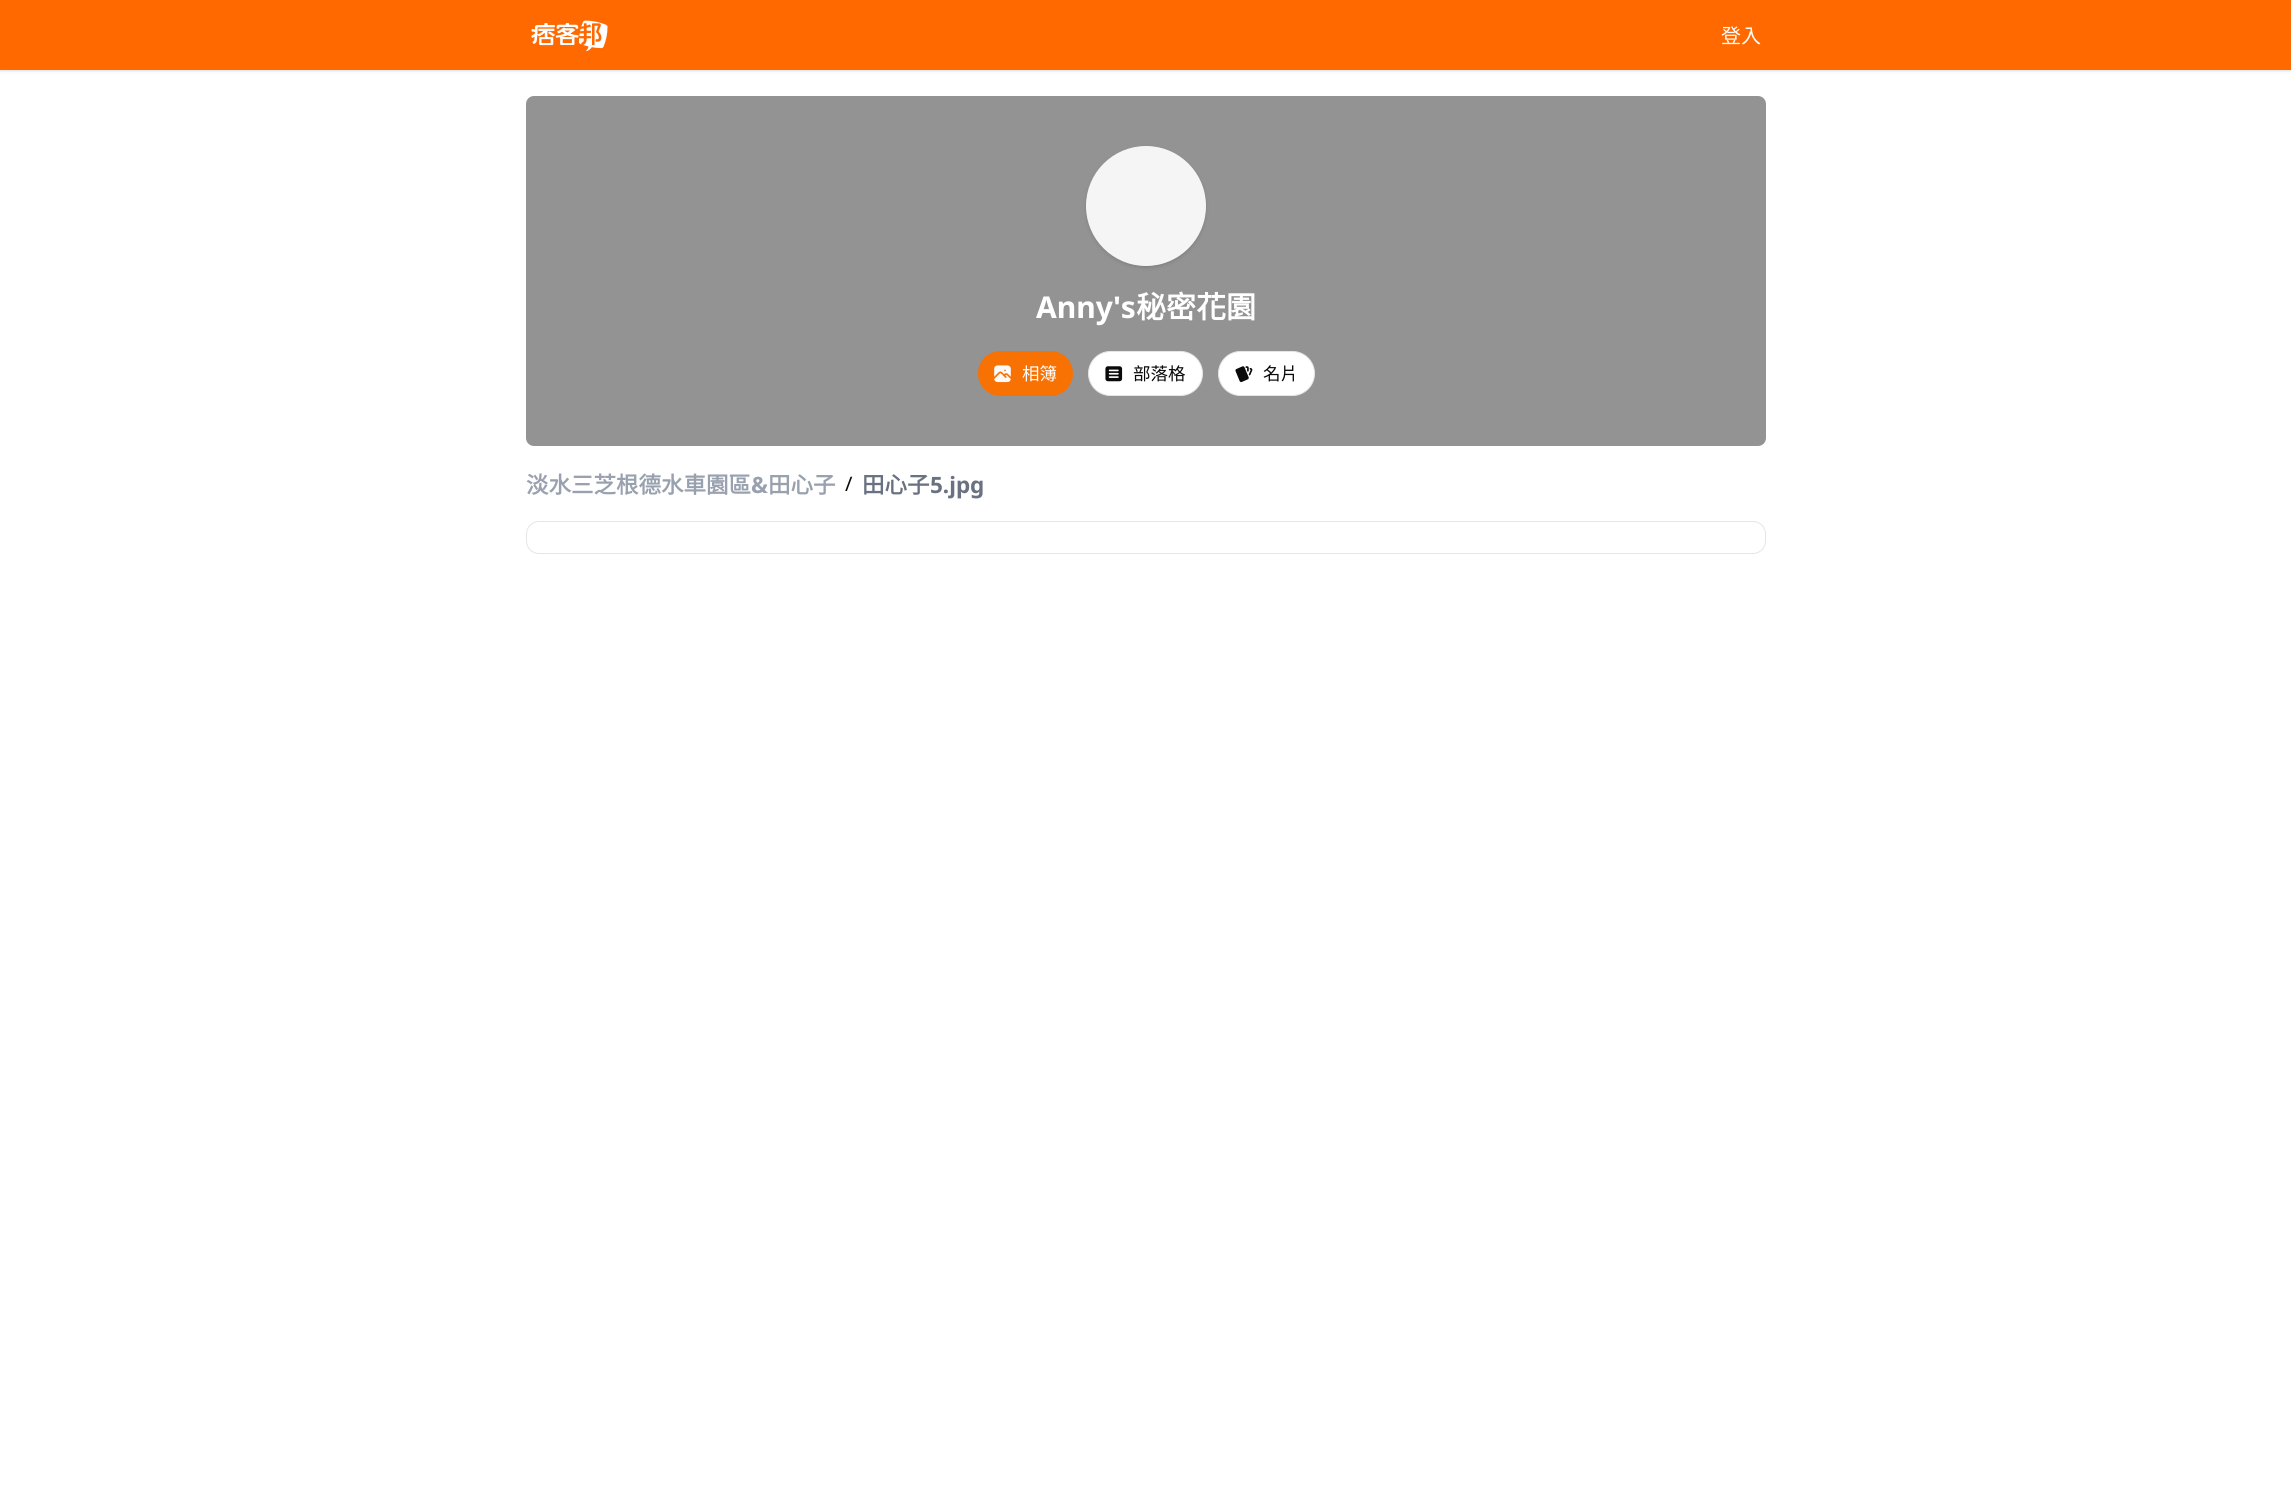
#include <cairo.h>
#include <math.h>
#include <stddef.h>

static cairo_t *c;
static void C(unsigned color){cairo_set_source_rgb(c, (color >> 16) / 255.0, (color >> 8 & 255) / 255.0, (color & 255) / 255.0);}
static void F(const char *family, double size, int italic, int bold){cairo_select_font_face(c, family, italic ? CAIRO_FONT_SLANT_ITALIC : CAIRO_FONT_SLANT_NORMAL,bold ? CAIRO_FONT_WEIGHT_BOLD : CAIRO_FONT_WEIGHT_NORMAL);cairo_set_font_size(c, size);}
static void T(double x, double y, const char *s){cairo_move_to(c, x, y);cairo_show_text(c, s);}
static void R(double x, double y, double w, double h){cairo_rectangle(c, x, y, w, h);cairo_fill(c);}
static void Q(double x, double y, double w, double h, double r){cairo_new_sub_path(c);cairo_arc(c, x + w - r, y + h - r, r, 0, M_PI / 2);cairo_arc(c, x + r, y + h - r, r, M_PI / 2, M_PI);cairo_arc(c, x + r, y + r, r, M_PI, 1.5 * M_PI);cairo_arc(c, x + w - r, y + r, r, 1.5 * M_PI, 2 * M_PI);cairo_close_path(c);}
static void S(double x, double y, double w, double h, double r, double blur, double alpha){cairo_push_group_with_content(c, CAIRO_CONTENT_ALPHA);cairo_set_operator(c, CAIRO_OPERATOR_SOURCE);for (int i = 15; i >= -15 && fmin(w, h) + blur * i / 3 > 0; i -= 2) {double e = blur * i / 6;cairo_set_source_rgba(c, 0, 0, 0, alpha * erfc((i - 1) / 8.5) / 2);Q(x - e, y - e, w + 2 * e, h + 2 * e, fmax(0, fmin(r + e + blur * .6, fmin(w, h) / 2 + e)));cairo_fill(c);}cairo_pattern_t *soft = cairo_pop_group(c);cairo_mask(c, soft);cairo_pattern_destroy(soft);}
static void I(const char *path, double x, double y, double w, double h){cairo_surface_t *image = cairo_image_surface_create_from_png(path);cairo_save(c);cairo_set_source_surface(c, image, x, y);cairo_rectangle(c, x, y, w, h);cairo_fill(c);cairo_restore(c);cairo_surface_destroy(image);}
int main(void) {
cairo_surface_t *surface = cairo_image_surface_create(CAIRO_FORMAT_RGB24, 2291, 1486);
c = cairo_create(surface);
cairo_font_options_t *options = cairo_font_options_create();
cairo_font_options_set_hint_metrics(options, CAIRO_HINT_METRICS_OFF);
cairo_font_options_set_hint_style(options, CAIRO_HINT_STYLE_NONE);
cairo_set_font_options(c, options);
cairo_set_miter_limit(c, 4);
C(0xffffff);
cairo_paint(c);
C(0x000000);
S(1,3,2289,67,0,1,.1);
S(0,1,2291,70,0,2,.1);
C(0xff6900);
R(0,0,2291,70);
I("1.png",531,20,77,31);
F("Noto Sans CJK TC",20,0,0);
C(0xffffff);
T(1721,43,"登入");
C(0xf5f5f5);
Q(526,96,1240,350,8);
cairo_fill(c);
cairo_set_source_rgba(c,0,0,0,0.4);
Q(526,96,1240,350,8);
cairo_fill(c);
C(0x000000);
S(1088,149,117,117,58.5,1,.1);
S(1086,148,120,120,60,2,.1);
C(0xf5f5f5);
cairo_arc(c,1146,206,60,0,2 * M_PI);
cairo_fill(c);
F("Noto Sans",30,0,1);
C(0xffffff);
T(1036,318,"Anny's");
F("Noto Sans CJK TC",30,0,1);
T(1136,318,"秘密花園");
C(0xf87103);
Q(978,351,95,45,22.5);
cairo_fill(c);
I("2.png",994,365,17,18);
F("Noto Sans CJK TC",17.5,0,0);
C(0xffffff);
T(1022,380,"相簿");
Q(1088.5,351.5,114,44,22);
cairo_fill_preserve(c);
C(0xe5e5e5);
cairo_set_line_width(c,1);
cairo_stroke(c);
I("3.png",1105,366,18,16);
C(0x0a0a0a);
T(1133,380,"部落格");
C(0xffffff);
Q(1218.5,351.5,96,44,22);
cairo_fill_preserve(c);
C(0xe5e5e5);
cairo_stroke(c);
I("4.png",1235,366,18,17);
C(0x0a0a0a);
T(1263,380,"名片");
F("Noto Sans CJK TC",22.5,0,1);
C(0x99a1af);
T(526,493,"淡水三芝根德水車園區");
F("Noto Sans",22.5,0,1);
T(751,493,"&");
F("Noto Sans CJK TC",22.5,0,1);
T(768,493,"田心子");
F("Noto Sans",20,0,0);
C(0x0a0a0a);
T(845,491,"/");
F("Noto Sans CJK TC",22.5,0,1);
C(0x6a7282);
T(862,493,"田心子");
F("Noto Sans",22.5,0,1);
T(930,493,"5.jpg");
Q(526.5,521.5,1239,32,12.5);
C(0xe5e5e5);
cairo_stroke(c);
cairo_surface_write_to_png(surface, "o.png");
cairo_font_options_destroy(options);
cairo_destroy(c);
cairo_surface_destroy(surface);
return 0;
}
